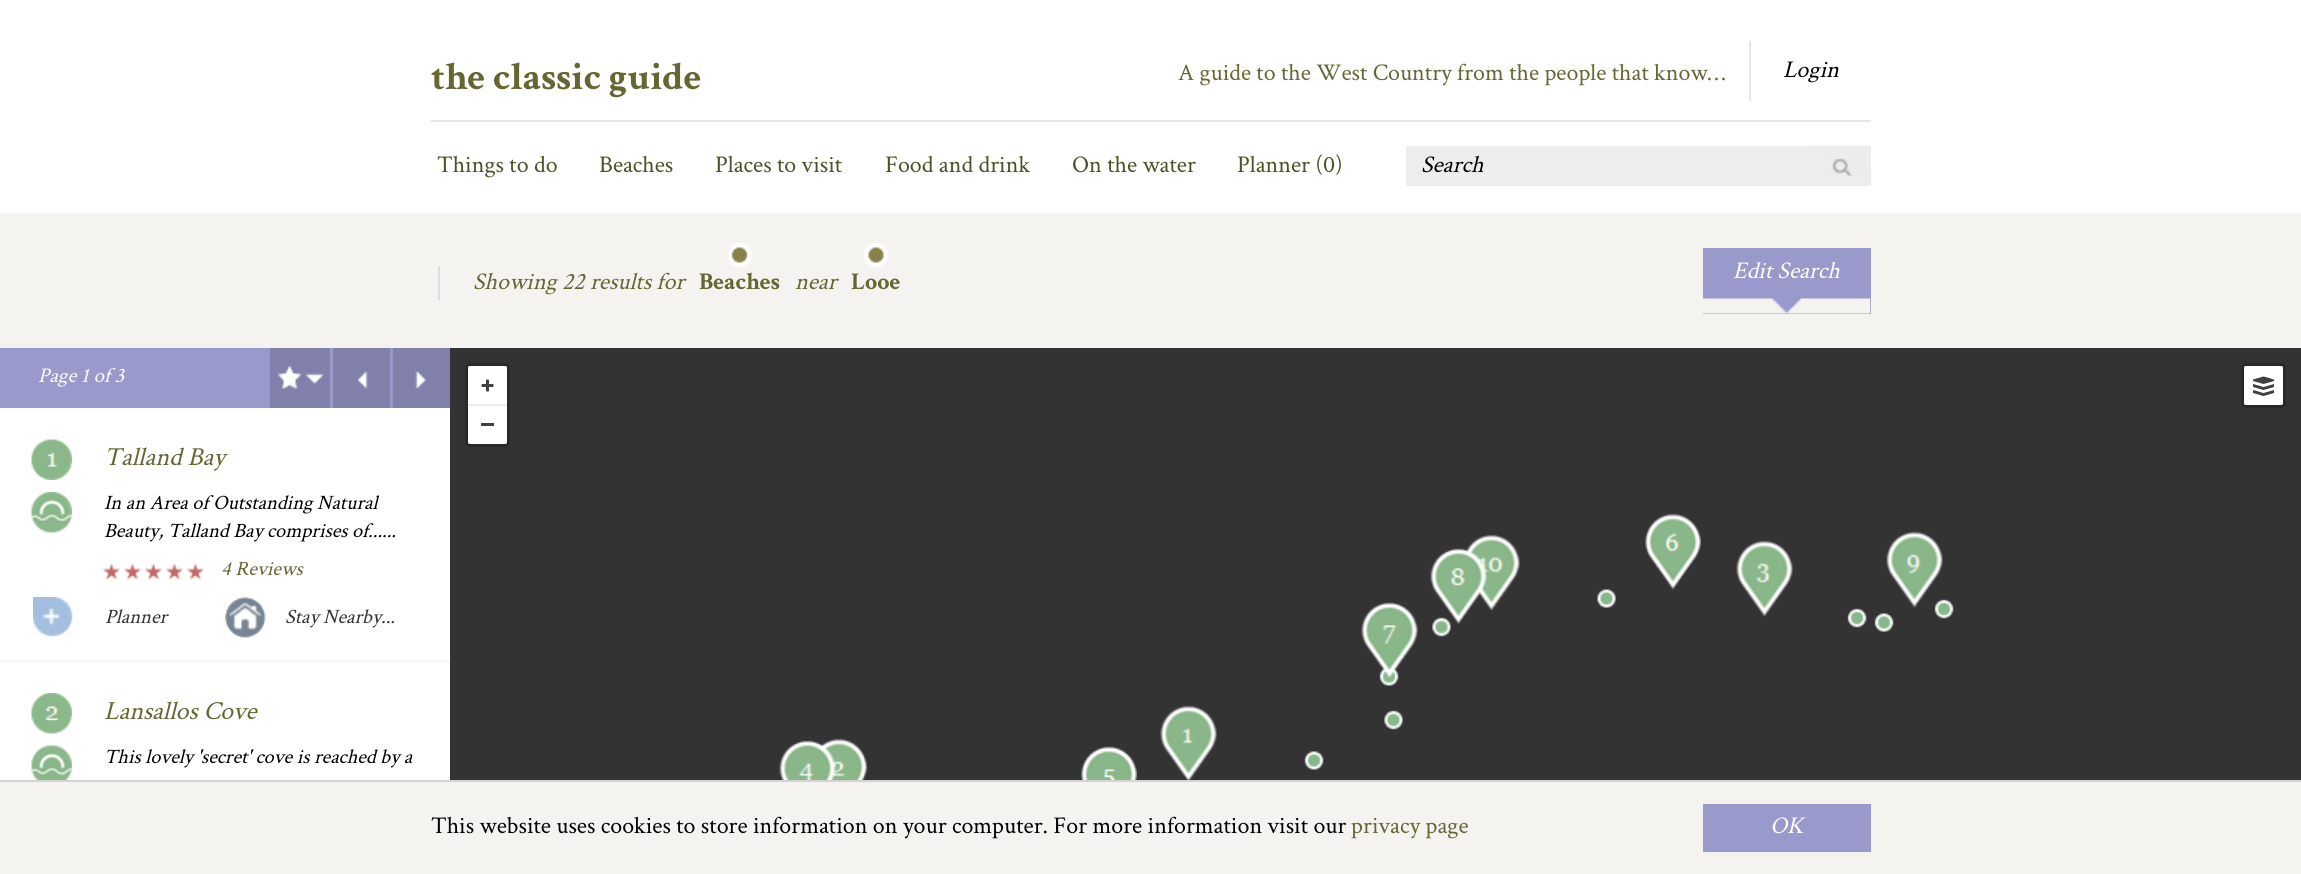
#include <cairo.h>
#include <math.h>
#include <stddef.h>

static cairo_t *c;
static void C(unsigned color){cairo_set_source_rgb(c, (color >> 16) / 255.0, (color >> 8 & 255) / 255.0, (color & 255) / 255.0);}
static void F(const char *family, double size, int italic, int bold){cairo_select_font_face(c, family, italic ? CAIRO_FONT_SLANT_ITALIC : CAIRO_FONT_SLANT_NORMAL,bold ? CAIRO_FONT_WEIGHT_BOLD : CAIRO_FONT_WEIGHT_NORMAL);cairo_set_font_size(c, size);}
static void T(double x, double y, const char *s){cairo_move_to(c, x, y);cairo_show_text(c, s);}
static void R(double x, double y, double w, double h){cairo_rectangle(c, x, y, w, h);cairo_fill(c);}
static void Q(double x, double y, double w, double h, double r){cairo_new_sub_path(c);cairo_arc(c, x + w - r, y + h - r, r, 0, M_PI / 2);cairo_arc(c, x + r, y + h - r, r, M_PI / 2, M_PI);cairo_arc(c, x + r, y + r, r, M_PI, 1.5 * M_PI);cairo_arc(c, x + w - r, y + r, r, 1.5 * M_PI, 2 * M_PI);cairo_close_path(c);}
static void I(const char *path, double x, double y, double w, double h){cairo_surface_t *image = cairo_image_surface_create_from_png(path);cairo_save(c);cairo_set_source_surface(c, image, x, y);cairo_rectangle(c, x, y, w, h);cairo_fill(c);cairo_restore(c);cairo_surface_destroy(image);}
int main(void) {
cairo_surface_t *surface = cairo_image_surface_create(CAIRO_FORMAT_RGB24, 2301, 874);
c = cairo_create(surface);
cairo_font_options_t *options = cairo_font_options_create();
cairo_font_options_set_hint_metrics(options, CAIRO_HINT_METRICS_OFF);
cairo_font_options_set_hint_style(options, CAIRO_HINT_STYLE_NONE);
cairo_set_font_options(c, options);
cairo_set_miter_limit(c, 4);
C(0xffffff);
cairo_paint(c);
C(0xe6e6e6);
R(431,120,1440,2);
F("Crimson Text",39,0,1);
C(0x666633);
T(431,89,"the classic guide");
F("Crimson Text",24,0,0);
T(1178,80,"A guide to the West Country from the people that know…");
C(0xe6e6e6);
R(1749,41,2,60);
F("Crimson Text",24,1,0);
C(0x000000);
T(1783,77,"Login");
F("Crimson Text",24,0,0);
C(0x4f4f27);
T(437,172,"Things to do");
T(599,172,"Beaches");
T(715,172,"Places to visit");
T(885,172,"Food and drink");
T(1072,172,"On the water");
T(1237,172,"Planner (0)");
C(0xededed);
R(1406,146,465,40);
F("Crimson Text",24,1,0);
C(0x000000);
T(1421,172,"Search");
I("1.png",1810,145,61,32);
C(0xf4f3f0);
R(0,213,2301,135);
C(0x9999cc);
R(1703,248,168,66);
I("2.png",1703,298,168,16);
C(0xffffff);
T(1733,278,"Edit Search");
C(0xdddddd);
R(438,266,2,34);
C(0x666633);
T(473,289,"Showing 22 results for");
I("3.png",727,243,25,24);
F("Crimson Text",24,0,1);
T(699,289,"Beaches");
F("Crimson Text",24,1,0);
T(795,289,"near");
I("4.png",864,243,24,24);
F("Crimson Text",24,0,1);
T(851,289,"Looe");
C(0x9999cc);
R(0,348,392,60);
F("Crimson Text",21,1,0);
C(0xffffff);
T(38,382,"Page 1 of 3");
I("5.png",270,348,60,60);
I("6.png",332,348,58,60);
I("7.png",392,348,58,60);
I("8.png",31,439,41,41);
I("9.png",31,492,41,41);
F("Crimson Text",26,1,0);
C(0x666633);
T(104,465,"Talland Bay");
F("Crimson Text",20.4,1,0);
C(0x000000);
T(104,509,"In an Area of Outstanding Natural");
T(104,537,"Beauty, Talland Bay comprises of......");
I("10.png",103,564,102,16);
C(0x666633);
T(221,575,"4 Reviews");
I("11.png",33,597,40,40);
C(0x333333);
T(105,623,"Planner");
I("12.png",225,597,41,41);
T(285,623,"Stay Nearby...");
C(0xf6f6f6);
R(0,660,450,2);
I("13.png",31,693,41,41);
I("14.png",31,745,41,35);
F("Crimson Text",26,1,0);
C(0x666633);
T(104,719,"Lansallos Cove");
F("Crimson Text",20.4,1,0);
C(0x000000);
T(104,763,"This lovely 'secret' cove is reached by a");
C(0x333333);
R(450,348,1851,432);
C(0xffffff);
Q(468,366,39,78,1.5);
cairo_fill(c);
Q(466.5,364.5,42,81,3.5);
cairo_set_source_rgba(c,0,0,0,0.2);
cairo_set_line_width(c,3);
cairo_stroke(c);
I("15.png",481,379,13,13);
C(0xececec);
R(468,404,39,2);
C(0x404040);
R(481,423,13,3);
C(0xffffff);
Q(2244,366,39,39,1.5);
cairo_fill(c);
Q(2242.5,364.5,42,42,3.5);
cairo_set_source_rgba(c,0,0,0,0.2);
cairo_stroke(c);
I("16.png",2253,376,21,20);
I("27.png",1304,589,650,181);
I("18.png",1465,534,55,77);
I("17.png",1430,548,57,76);
I("19.png",1645,513,56,77);
I("20.png",1736,540,57,77);
I("21.png",1886,531,57,77);
I("22.png",1361,602,57,76);
I("24.png",820,738,47,42);
I("23.png",779,740,57,40);
I("25.png",1081,746,56,34);
I("26.png",1160,705,57,75);
C(0xf4f3f0);
R(0,782,2301,92);
C(0xd3d3d3);
R(0,780,2301,2);
F("Crimson Text",24,0,0);
C(0x000000);
T(431,833,"This website uses cookies to store information on your computer. For more information visit our");
C(0x666633);
T(1351,833,"privacy page");
C(0x9999cc);
R(1703,804,168,48);
F("Crimson Text",24,1,0);
C(0xffffff);
T(1770,833,"OK");
cairo_surface_write_to_png(surface, "o.png");
cairo_font_options_destroy(options);
cairo_destroy(c);
cairo_surface_destroy(surface);
return 0;
}
